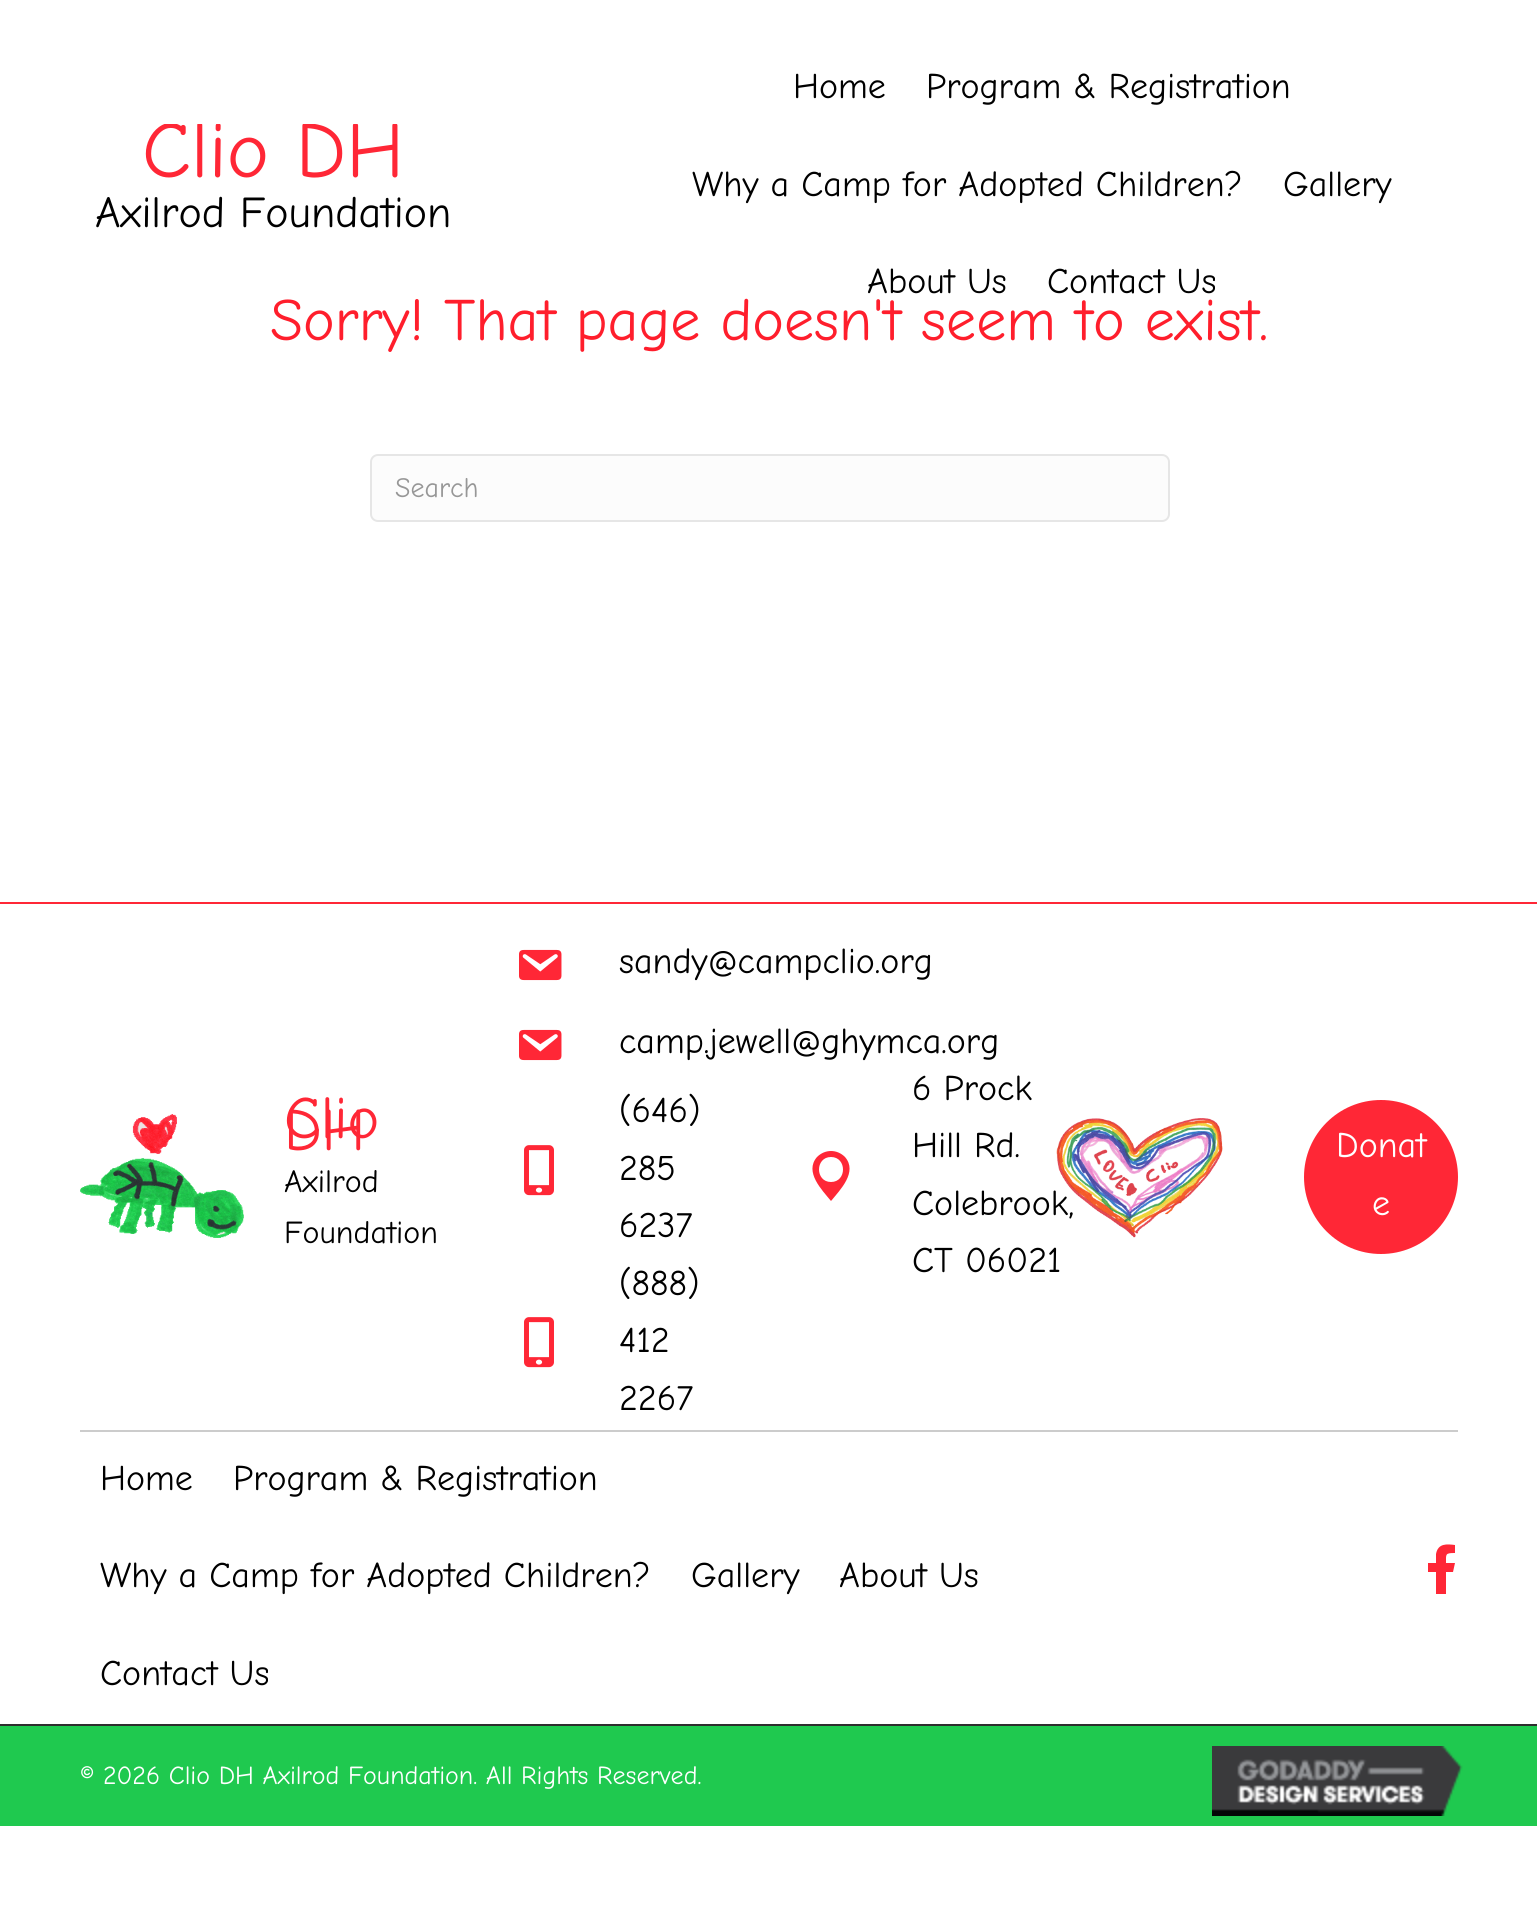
#include <cairo.h>
#include <math.h>
#include <stddef.h>

static cairo_t *c;
static void C(unsigned color){cairo_set_source_rgb(c, (color >> 16) / 255.0, (color >> 8 & 255) / 255.0, (color & 255) / 255.0);}
static void F(const char *family, double size, int italic, int bold){cairo_select_font_face(c, family, italic ? CAIRO_FONT_SLANT_ITALIC : CAIRO_FONT_SLANT_NORMAL,bold ? CAIRO_FONT_WEIGHT_BOLD : CAIRO_FONT_WEIGHT_NORMAL);cairo_set_font_size(c, size);}
static void T(double x, double y, const char *s){cairo_move_to(c, x, y);cairo_show_text(c, s);}
static void R(double x, double y, double w, double h){cairo_rectangle(c, x, y, w, h);cairo_fill(c);}
static void Q(double x, double y, double w, double h, double r){cairo_new_sub_path(c);cairo_arc(c, x + w - r, y + h - r, r, 0, M_PI / 2);cairo_arc(c, x + r, y + h - r, r, M_PI / 2, M_PI);cairo_arc(c, x + r, y + r, r, M_PI, 1.5 * M_PI);cairo_arc(c, x + w - r, y + r, r, 1.5 * M_PI, 2 * M_PI);cairo_close_path(c);}
static void I(const char *path, double x, double y, double w, double h){cairo_surface_t *image = cairo_image_surface_create_from_png(path);cairo_save(c);cairo_set_source_surface(c, image, x, y);cairo_rectangle(c, x, y, w, h);cairo_fill(c);cairo_restore(c);cairo_surface_destroy(image);}
int main(void) {
cairo_surface_t *surface = cairo_image_surface_create(CAIRO_FORMAT_RGB24, 1537, 1931);
c = cairo_create(surface);
cairo_font_options_t *options = cairo_font_options_create();
cairo_font_options_set_hint_metrics(options, CAIRO_HINT_METRICS_OFF);
cairo_font_options_set_hint_style(options, CAIRO_HINT_STYLE_NONE);
cairo_set_font_options(c, options);
cairo_set_miter_limit(c, 4);
C(0xffffff);
cairo_paint(c);
cairo_save(c);
cairo_rectangle(c,0,124,546,126);
cairo_clip(c);
F("Comic Neue",80,0,0);
C(0xff2736);
T(142,177,"Clio DH");
cairo_restore(c);
F("Comic Neue",44,0,0);
C(0x000000);
T(95,227,"Axilrod Foundation");
F("Comic Neue",36,0,0);
T(793,98,"Home");
T(926,98,"Program & Registration");
T(692,196,"Why a Camp for Adopted Children?");
T(1283,196,"Gallery");
T(867,293,"About Us");
T(1047,293,"Contact Us");
F("Comic Neue",60,0,0);
C(0xff1e2c);
T(270,340,"Sorry! That page doesn't seem to exist.");
C(0xfcfcfc);
Q(371,455,798,66,7);
cairo_fill_preserve(c);
C(0xe6e6e6);
cairo_stroke(c);
F("Comic Neue",28,0,0);
C(0x979797);
T(395,497,"Search");
C(0xff2736);
R(0,902,1537,2);
I("1.png",519,949,43,32);
F("Comic Neue",36,0,0);
C(0x000000);
T(619,973,"sandy@campclio.org");
I("1.png",519,1029,43,32);
T(619,1053,"camp.jewell@ghymca.org");
I("2.png",524,1145,30,51);
T(619,1122,"(646)");
T(619,1180,"285");
T(619,1237,"6237");
I("2.png",524,1317,30,51);
T(619,1295,"(888)");
T(619,1352,"412");
T(619,1410,"2267");
I("3.png",80,1114,164,124);
F("Comic Neue",60,0,0);
C(0xff2736);
T(284,1138,"Clio");
T(284,1150,"DH");
F("Comic Neue",32,0,0);
C(0x000000);
T(284,1192,"Axilrod");
T(284,1243,"Foundation");
C(0xff2736);
cairo_new_path(c);
cairo_move_to(c,831,1151);
cairo_curve_to(c,826,1151,821,1153,817,1157);
cairo_curve_to(c,804,1172,822,1190,831,1201);
cairo_curve_to(c,840,1190,858,1172,845,1157);
cairo_curve_to(c,841,1153,836,1151,831,1151);
cairo_close_path(c);
cairo_move_to(c,831,1182);
cairo_curve_to(c,815,1182,815,1157,831,1157);
cairo_curve_to(c,847,1157,847,1182,831,1182);
cairo_close_path(c);
cairo_fill(c);
F("Comic Neue",36,0,0);
C(0x000000);
T(912,1100,"6 Prock");
T(912,1157,"Hill Rd.");
I("4.png",1056,1118,167,120);
T(912,1215,"Colebrook,");
T(912,1272,"CT 06021");
C(0xff2736);
cairo_new_path(c);
cairo_arc(c,1381,1177,77,0,2 * M_PI);
cairo_fill(c);
C(0xffffff);
T(1336,1157,"Donat");
T(1372,1215,"e");
C(0xcccccc);
R(80,1430,1378,2);
C(0x000000);
T(100,1490,"Home");
T(233,1490,"Program & Registration");
T(100,1587,"Why a Camp for Adopted Children?");
T(691,1587,"Gallery");
T(839,1587,"About Us");
T(100,1685,"Contact Us");
C(0xff2736);
cairo_new_path(c);
cairo_move_to(c,1453,1572);
cairo_line_to(c,1446,1572);
cairo_line_to(c,1446,1594);
cairo_line_to(c,1436,1594);
cairo_line_to(c,1436,1572);
cairo_line_to(c,1428,1572);
cairo_line_to(c,1428,1563);
cairo_line_to(c,1436,1563);
cairo_line_to(c,1436,1554);
cairo_curve_to(c,1438,1543,1447,1544,1455,1545);
cairo_line_to(c,1455,1553);
cairo_curve_to(c,1445,1553,1446,1554,1446,1563);
cairo_line_to(c,1455,1563);
cairo_close_path(c);
cairo_fill(c);
C(0x1fc94f);
R(0,1726,1537,100);
C(0x2d2d2d);
R(0,1724,1537,2);
F("Comic Neue",26,0,0);
C(0xffffff);
T(80,1784,"© 2026 Clio DH Axilrod Foundation. All Rights Reserved.");
I("5.png",1212,1746,251,70);
cairo_surface_write_to_png(surface, "o.png");
cairo_font_options_destroy(options);
cairo_destroy(c);
cairo_surface_destroy(surface);
return 0;
}
